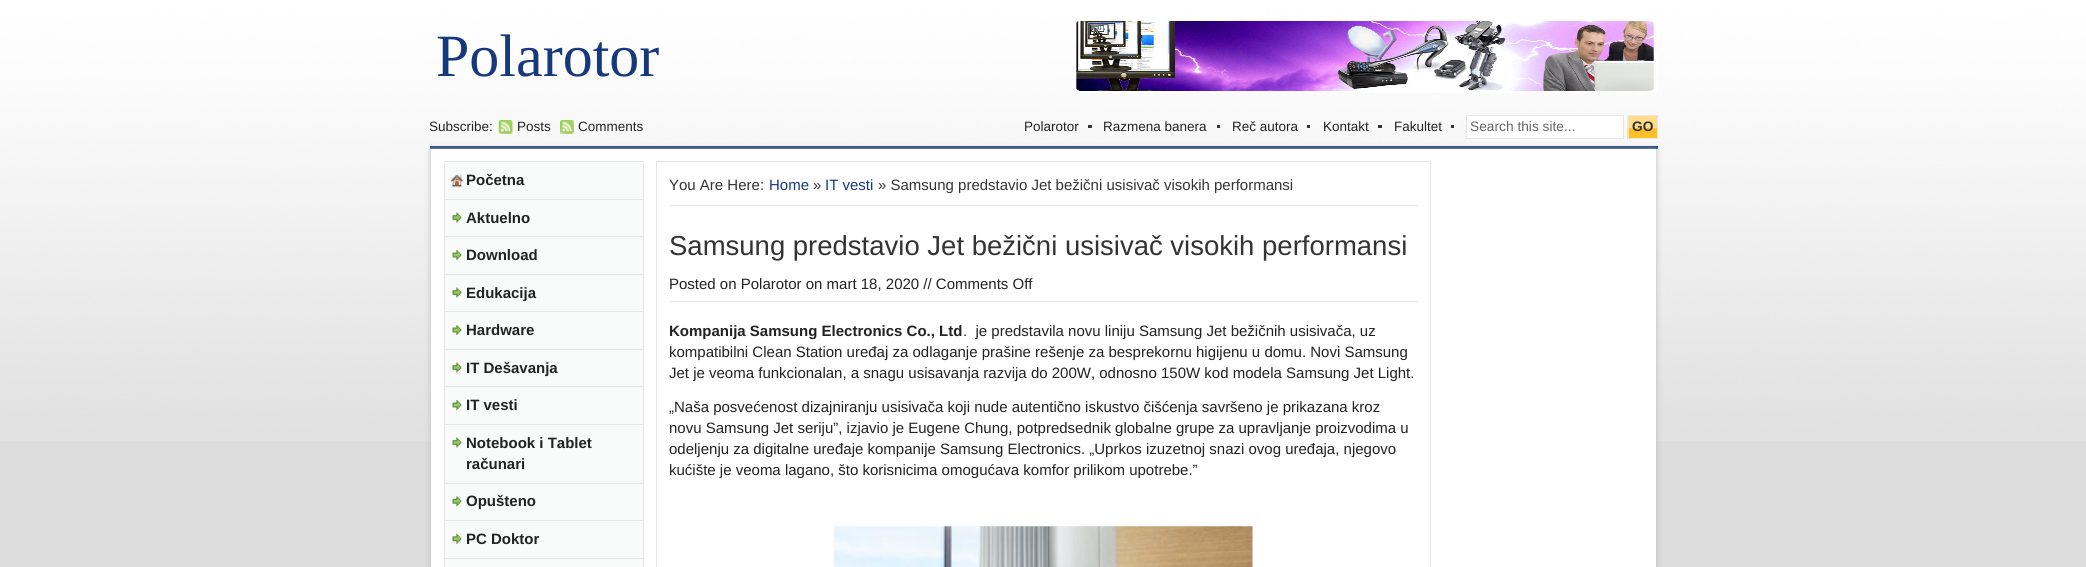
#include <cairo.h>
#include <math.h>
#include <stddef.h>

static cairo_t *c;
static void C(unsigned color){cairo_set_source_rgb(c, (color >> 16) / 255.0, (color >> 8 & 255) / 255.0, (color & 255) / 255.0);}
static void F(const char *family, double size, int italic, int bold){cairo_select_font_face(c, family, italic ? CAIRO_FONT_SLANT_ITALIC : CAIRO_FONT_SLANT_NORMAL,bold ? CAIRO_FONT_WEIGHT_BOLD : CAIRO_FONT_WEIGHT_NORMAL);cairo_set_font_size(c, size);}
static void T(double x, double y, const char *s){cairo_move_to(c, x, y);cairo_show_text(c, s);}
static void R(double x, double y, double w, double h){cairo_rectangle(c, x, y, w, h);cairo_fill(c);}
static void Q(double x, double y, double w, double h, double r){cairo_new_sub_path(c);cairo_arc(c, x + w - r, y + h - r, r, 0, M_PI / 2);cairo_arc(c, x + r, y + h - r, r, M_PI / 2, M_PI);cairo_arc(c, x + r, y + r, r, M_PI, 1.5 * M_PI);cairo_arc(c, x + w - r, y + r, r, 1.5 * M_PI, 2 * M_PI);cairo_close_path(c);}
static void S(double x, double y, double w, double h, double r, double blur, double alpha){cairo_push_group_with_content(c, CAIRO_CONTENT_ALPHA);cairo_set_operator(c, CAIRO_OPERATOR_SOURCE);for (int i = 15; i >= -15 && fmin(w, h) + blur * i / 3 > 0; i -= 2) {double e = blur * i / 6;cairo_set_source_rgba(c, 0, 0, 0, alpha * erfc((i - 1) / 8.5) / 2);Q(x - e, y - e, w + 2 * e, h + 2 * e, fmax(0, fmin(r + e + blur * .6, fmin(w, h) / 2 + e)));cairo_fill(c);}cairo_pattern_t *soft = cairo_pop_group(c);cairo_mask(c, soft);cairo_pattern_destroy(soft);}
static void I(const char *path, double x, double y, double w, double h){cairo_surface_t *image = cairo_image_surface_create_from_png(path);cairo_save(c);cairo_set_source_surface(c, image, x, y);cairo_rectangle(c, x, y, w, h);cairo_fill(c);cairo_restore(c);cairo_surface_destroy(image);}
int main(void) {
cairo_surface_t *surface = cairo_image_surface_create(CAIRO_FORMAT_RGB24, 2086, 567);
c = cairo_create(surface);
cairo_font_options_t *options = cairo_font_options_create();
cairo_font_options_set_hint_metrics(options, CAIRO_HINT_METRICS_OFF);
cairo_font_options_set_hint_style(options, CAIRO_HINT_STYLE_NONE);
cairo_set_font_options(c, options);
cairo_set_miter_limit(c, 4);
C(0xdddddd);
cairo_paint(c);
I("1.png",0,0,2086,441);
F("Liberation Serif",60,0,0);
C(0x16387c);
T(436,76,"Polarotor");
I("2.png",1073,19,585,74);
R(430,146,1228,3);
F("Liberation Sans",13.5,0,0);
C(0x222222);
T(429,131,"Subscribe:");
I("3.png",498,120,15,14);
T(517,131,"Posts");
I("4.png",560,120,14,14);
T(578,131,"Comments");
C(0x333333);
R(1088,125,4,3);
C(0x222222);
T(1024,131,"Polarotor");
C(0x333333);
R(1217,125,3,3);
C(0x222222);
T(1103,131,"Razmena banera");
C(0x333333);
R(1307,125,3,3);
C(0x222222);
T(1232,131,"Reč autora");
C(0x333333);
R(1378,125,4,3);
C(0x222222);
T(1323,131,"Kontakt");
C(0x333333);
R(1451,125,3,3);
C(0x222222);
T(1394,131,"Fakultet");
C(0xffffff);
cairo_rectangle(c,1466.5,115.5,157,23);
cairo_fill_preserve(c);
C(0xe6e6e6);
cairo_set_line_width(c,1);
cairo_stroke(c);
F("Liberation Sans",13.75,0,0);
C(0x666666);
T(1470,131,"Search this site...");
I("5.png",1627,115,30,24);
cairo_rectangle(c,1628.5,115.5,29,23);
C(0xe6e6e6);
cairo_stroke(c);
F("Liberation Sans",13.75,0,1);
C(0x333333);
T(1632,131,"GO");
C(0xbbbbbb);
S(431,149,1225,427,0,3,1);
C(0xffffff);
R(431,149,1225,418);
C(0xe6e6e6);
R(444,161,200,1);
C(0xf9fafa);
R(445,163,198,36);
I("6.png",451,174,12,14);
C(0xe6e6e6);
R(643,163,1,396);
R(444,199,200,1);
R(444,163,1,37);
F("Liberation Sans",15,0,1);
C(0x222222);
T(466,185,"Početna");
C(0xf9fafa);
R(445,200,198,74);
I("7.png",451,211,11,13);
C(0xe6e6e6);
R(444,236,200,1);
R(444,200,1,38);
C(0x222222);
T(466,223,"Aktuelno");
I("8.png",451,249,11,12);
C(0xe6e6e6);
R(444,274,200,1);
R(444,238,1,37);
C(0x222222);
T(466,260,"Download");
C(0xf9fafa);
R(445,275,198,74);
I("9.png",451,286,11,13);
C(0xe6e6e6);
R(444,311,200,1);
R(444,275,1,38);
C(0x222222);
T(466,298,"Edukacija");
I("8.png",451,324,11,12);
C(0xe6e6e6);
R(444,349,200,1);
R(444,313,1,37);
C(0x222222);
T(466,335,"Hardware");
C(0xf9fafa);
R(445,350,198,74);
I("7.png",451,361,11,13);
C(0xe6e6e6);
R(444,386,200,1);
R(444,350,1,38);
C(0x222222);
T(466,373,"IT Dešavanja");
I("8.png",451,399,11,12);
C(0xe6e6e6);
R(444,424,200,1);
R(444,388,1,37);
C(0x222222);
T(466,410,"IT vesti");
C(0xf9fafa);
R(445,425,198,58);
I("7.png",451,436,11,13);
C(0xe6e6e6);
R(444,483,200,1);
R(444,425,1,59);
C(0x222222);
T(466,448,"Notebook i Tablet");
T(466,469,"računari");
C(0xf9fafa);
R(445,484,198,36);
I("10.png",451,495,11,12);
C(0xe6e6e6);
R(444,520,200,1);
R(444,484,1,37);
C(0x222222);
T(466,506,"Opušteno");
C(0xf9fafa);
R(445,521,198,37);
I("11.png",451,533,11,12);
C(0xe6e6e6);
R(444,558,200,1);
R(444,521,1,38);
C(0x222222);
T(466,544,"PC Doktor");
C(0xf9fafa);
R(444,559,200,8);
C(0xe6e6e6);
R(643,559,1,8);
R(444,559,1,8);
cairo_rectangle(c,656.5,161.5,774,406);
cairo_stroke(c);
R(670,205,748,1);
F("Liberation Sans",15,0,0);
C(0x333333);
T(669,190,"You Are Here:");
C(0x16387c);
T(769,190,"Home");
C(0x333333);
T(813,190,"»");
C(0x16387c);
T(825,190,"IT vesti");
C(0x333333);
T(878,190,"» Samsung predstavio Jet bežični usisivač visokih performansi");
F("Liberation Sans",27.5,0,0);
T(669,255,"Samsung predstavio Jet bežični usisivač visokih performansi");
F("Liberation Sans",15,0,0);
C(0x222222);
T(669,289,"Posted on Polarotor on mart 18, 2020 // Comments Off");
C(0xe6e6e6);
R(670,301,748,1);
F("Liberation Sans",15,0,1);
C(0x222222);
T(669,336,"Kompanija Samsung Electronics Co., Ltd");
F("Liberation Sans",15,0,0);
T(963,336,".  je predstavila novu liniju Samsung Jet bežičnih usisivača, uz");
T(669,357,"kompatibilni Clean Station uređaj za odlaganje prašine rešenje za besprekornu higijenu u domu. Novi Samsung");
T(669,378,"Jet je veoma funkcionalan, a snagu usisavanja razvija do 200W, odnosno 150W kod modela Samsung Jet Light.");
T(669,412,"„Naša posvećenost dizajniranju usisivača koji nude autentično iskustvo čišćenja savršeno je prikazana kroz");
T(669,433,"novu Samsung Jet seriju”, izjavio je Eugene Chung, potpredsednik globalne grupe za upravljanje proizvodima u");
T(669,454,"odeljenju za digitalne uređaje kompanije Samsung Electronics. „Uprkos izuzetnoj snazi ovog uređaja, njegovo");
T(669,475,"kućište je veoma lagano, što korisnicima omogućava komfor prilikom upotrebe.”");
I("12.png",833,526,420,41);
cairo_surface_write_to_png(surface, "o.png");
cairo_font_options_destroy(options);
cairo_destroy(c);
cairo_surface_destroy(surface);
return 0;
}
